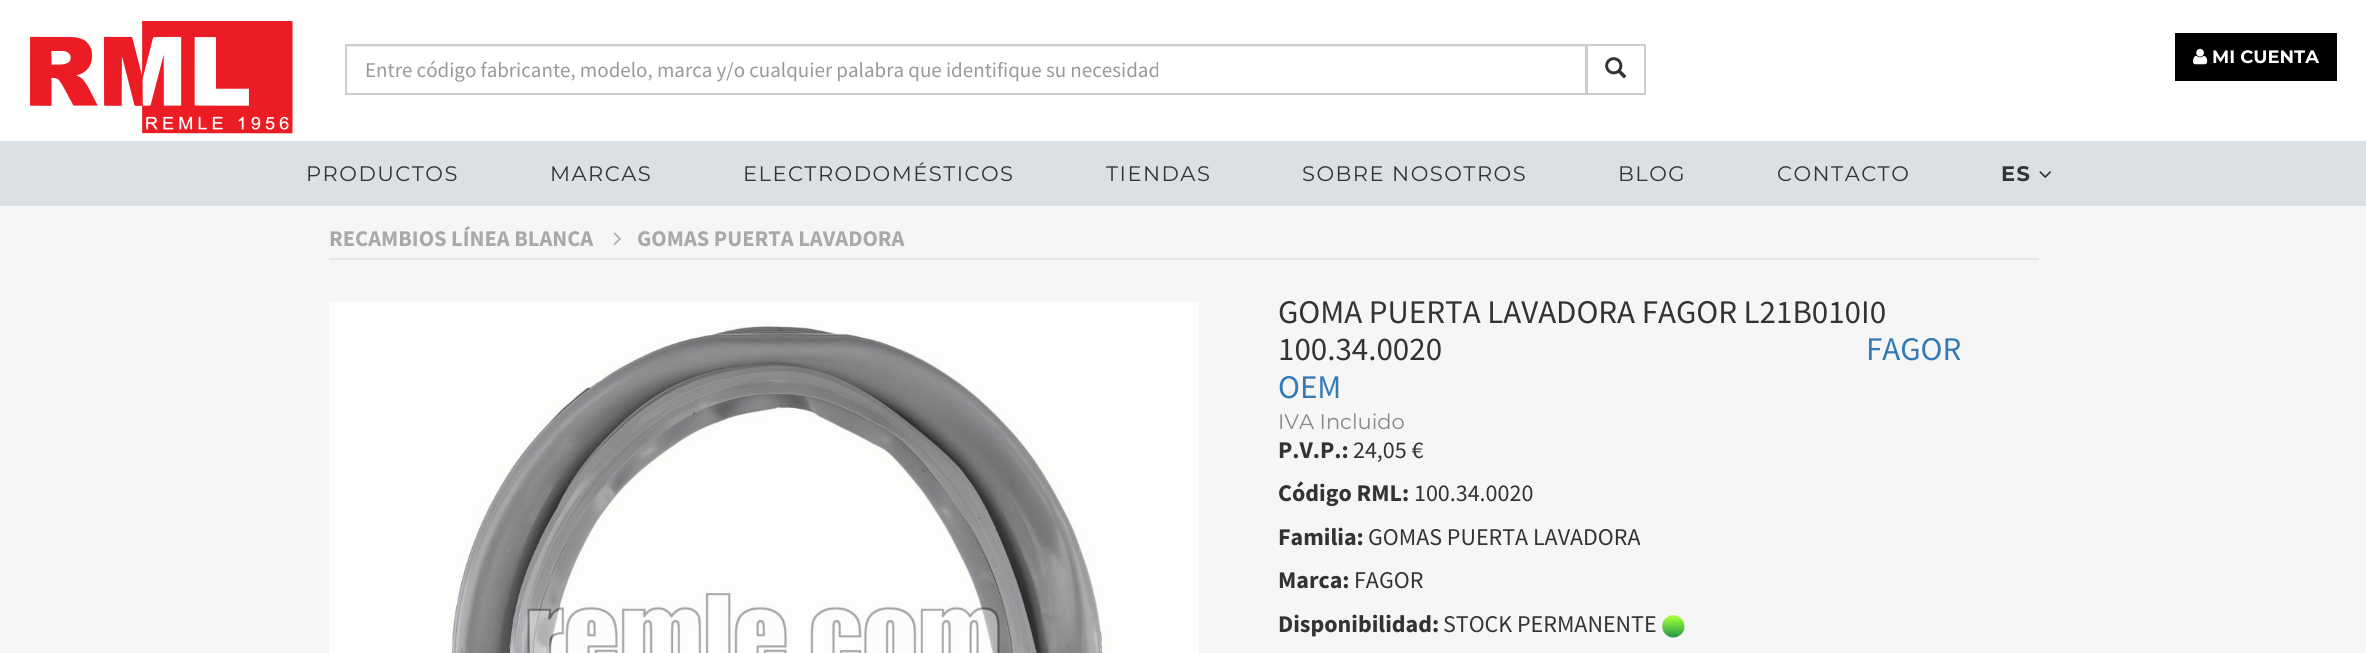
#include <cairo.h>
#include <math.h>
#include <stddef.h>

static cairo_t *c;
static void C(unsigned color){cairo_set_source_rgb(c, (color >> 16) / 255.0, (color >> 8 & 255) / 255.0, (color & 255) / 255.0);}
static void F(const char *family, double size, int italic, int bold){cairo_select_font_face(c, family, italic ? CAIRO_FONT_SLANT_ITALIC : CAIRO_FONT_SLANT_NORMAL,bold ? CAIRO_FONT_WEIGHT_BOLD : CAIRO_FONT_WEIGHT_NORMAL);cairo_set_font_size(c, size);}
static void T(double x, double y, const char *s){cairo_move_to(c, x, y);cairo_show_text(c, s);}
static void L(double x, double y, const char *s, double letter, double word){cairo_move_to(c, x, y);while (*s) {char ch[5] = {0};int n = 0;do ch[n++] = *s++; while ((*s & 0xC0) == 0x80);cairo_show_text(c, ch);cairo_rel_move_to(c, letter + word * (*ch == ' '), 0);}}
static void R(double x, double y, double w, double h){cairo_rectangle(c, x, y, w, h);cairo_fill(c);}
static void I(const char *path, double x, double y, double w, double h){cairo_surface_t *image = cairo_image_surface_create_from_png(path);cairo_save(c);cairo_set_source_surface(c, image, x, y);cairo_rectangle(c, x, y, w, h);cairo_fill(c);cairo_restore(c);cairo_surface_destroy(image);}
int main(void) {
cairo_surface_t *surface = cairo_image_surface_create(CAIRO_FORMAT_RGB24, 2366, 653);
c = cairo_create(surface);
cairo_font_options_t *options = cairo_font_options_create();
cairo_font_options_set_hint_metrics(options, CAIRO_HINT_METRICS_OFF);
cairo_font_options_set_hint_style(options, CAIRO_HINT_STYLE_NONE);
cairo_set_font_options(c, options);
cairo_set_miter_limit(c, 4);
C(0xf6f6f6);
cairo_paint(c);
C(0xffffff);
R(0,0,2366,141);
I("1.png",30,21,263,113);
C(0x000000);
R(2175,33,162,48);
I("2.png",2193,48,15,17);
F("Montserrat",18,0,1);
C(0xffffff);
T(2212,63,"MI CUENTA");
C(0xececec);
R(347,46,1239,1);
cairo_rectangle(c,346,45,1240,49);
C(0xcccccc);
cairo_stroke(c);
F("Source Sans Pro",21,0,0);
C(0x999999);
T(365,77,"Entre código fabricante, modelo, marca y/o cualquier palabra que identifique su necesidad");
cairo_rectangle(c,1587,45,58,49);
C(0xcccccc);
cairo_stroke(c);
I("3.png",1605,57,22,22);
C(0xdae0e3);
R(0,141,2366,65);
F("Montserrat",21,0,0);
C(0x333333);
L(306,181,"PRODUCTOS",1.5,0);
L(550,181,"MARCAS",1.5,0);
L(743,181,"ELECTRODOMÉSTICOS",1.5,0);
L(1106,181,"TIENDAS",1.5,0);
L(1302,181,"SOBRE NOSOTROS",1.5,0);
L(1618,181,"BLOG",1.5,0);
L(1777,181,"CONTACTO",1.5,0);
F("Montserrat",21,0,1);
L(2001,181,"ES",1.5,0);
I("4.png",2039,171,12,7);
C(0xe5e5e5);
R(329,258,1710,2);
F("Source Sans Pro",22.5,0,1);
C(0xa9a9a9);
T(329,246,"RECAMBIOS LÍNEA BLANCA");
I("5.png",613,232,8,13);
T(637,246,"GOMAS PUERTA LAVADORA");
I("6.png",329,302,870,351);
F("Source Sans Pro",33,0,0);
C(0x333333);
T(1278,323,"GOMA PUERTA LAVADORA FAGOR L21B010I0");
T(1278,360,"100.34.0020");
C(0x337ab7);
T(1866,360,"FAGOR");
T(1278,398,"OEM");
F("Montserrat",21,0,0);
C(0x888888);
T(1278,429,"IVA Incluido");
F("Source Sans Pro",24,0,1);
C(0x333333);
T(1278,458,"P.V.P.:");
F("Source Sans Pro",24,0,0);
T(1353,458,"24,05 €");
F("Source Sans Pro",24,0,1);
T(1278,501,"Código RML:");
F("Source Sans Pro",24,0,0);
T(1414,501,"100.34.0020");
F("Source Sans Pro",24,0,1);
T(1278,545,"Familia:");
F("Source Sans Pro",24,0,0);
T(1368,545,"GOMAS PUERTA LAVADORA");
F("Source Sans Pro",24,0,1);
T(1278,588,"Marca:");
F("Source Sans Pro",24,0,0);
T(1354,588,"FAGOR");
F("Source Sans Pro",24,0,1);
T(1278,632,"Disponibilidad:");
F("Source Sans Pro",24,0,0);
T(1443,632,"STOCK PERMANENTE");
I("7.png",1662,615,23,23);
cairo_surface_write_to_png(surface, "o.png");
cairo_font_options_destroy(options);
cairo_destroy(c);
cairo_surface_destroy(surface);
return 0;
}
